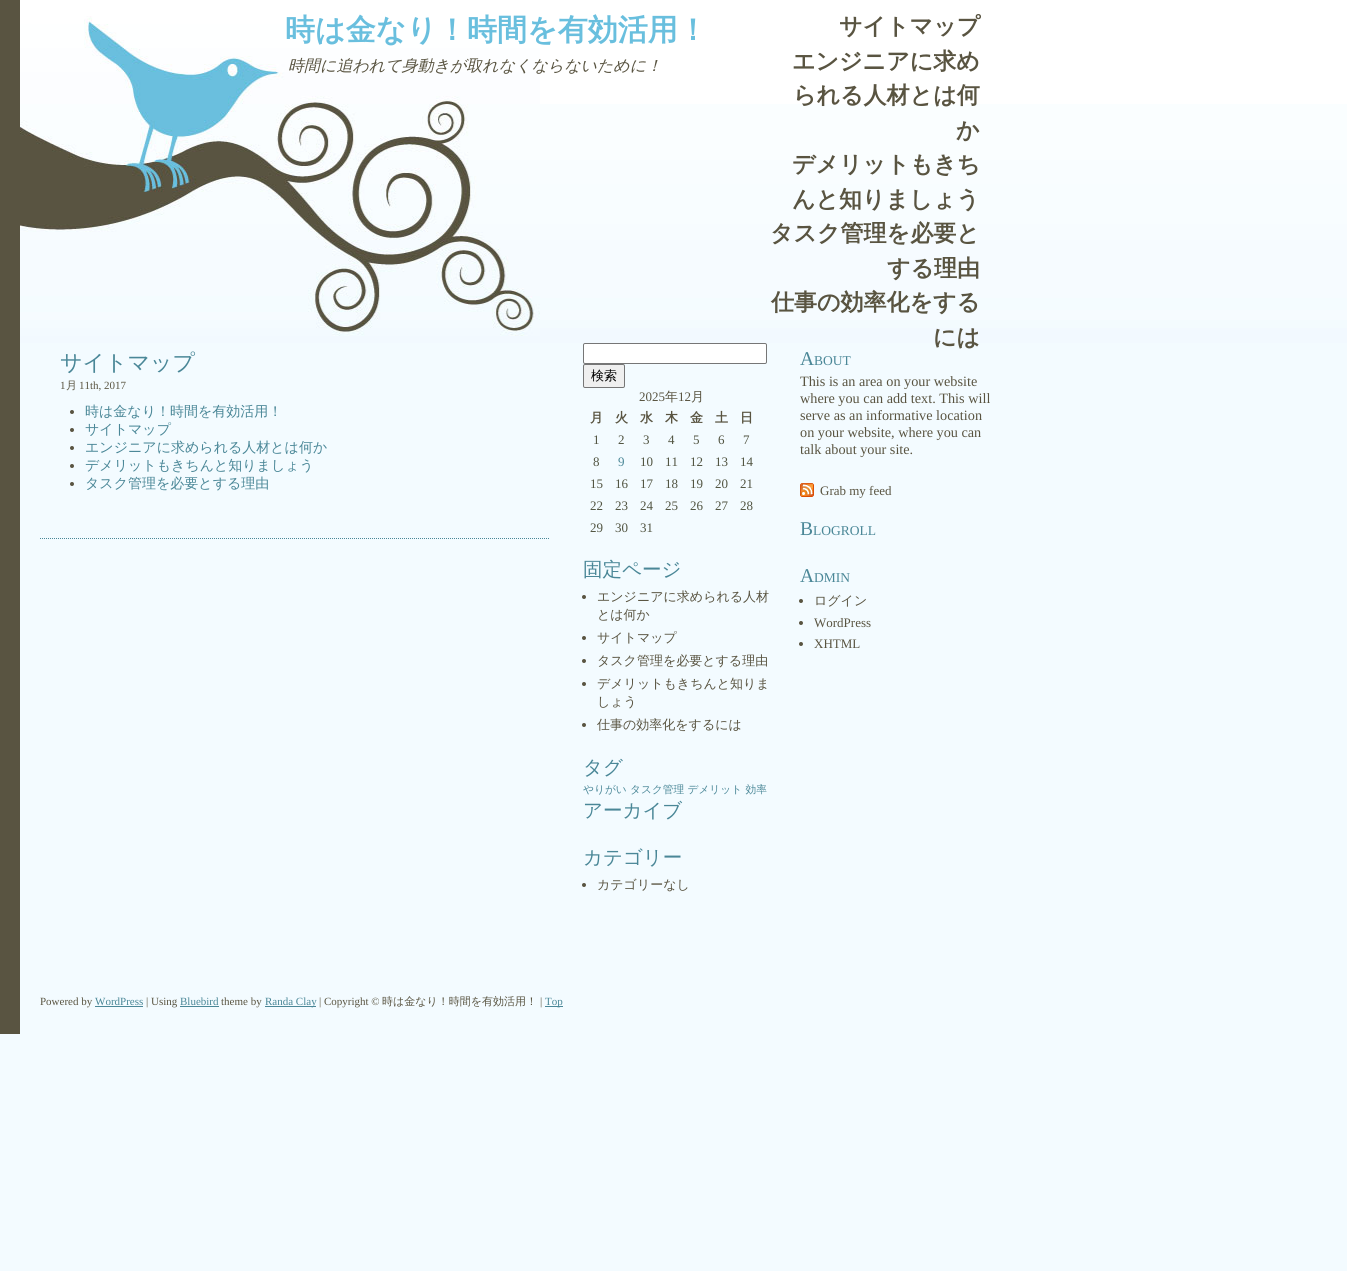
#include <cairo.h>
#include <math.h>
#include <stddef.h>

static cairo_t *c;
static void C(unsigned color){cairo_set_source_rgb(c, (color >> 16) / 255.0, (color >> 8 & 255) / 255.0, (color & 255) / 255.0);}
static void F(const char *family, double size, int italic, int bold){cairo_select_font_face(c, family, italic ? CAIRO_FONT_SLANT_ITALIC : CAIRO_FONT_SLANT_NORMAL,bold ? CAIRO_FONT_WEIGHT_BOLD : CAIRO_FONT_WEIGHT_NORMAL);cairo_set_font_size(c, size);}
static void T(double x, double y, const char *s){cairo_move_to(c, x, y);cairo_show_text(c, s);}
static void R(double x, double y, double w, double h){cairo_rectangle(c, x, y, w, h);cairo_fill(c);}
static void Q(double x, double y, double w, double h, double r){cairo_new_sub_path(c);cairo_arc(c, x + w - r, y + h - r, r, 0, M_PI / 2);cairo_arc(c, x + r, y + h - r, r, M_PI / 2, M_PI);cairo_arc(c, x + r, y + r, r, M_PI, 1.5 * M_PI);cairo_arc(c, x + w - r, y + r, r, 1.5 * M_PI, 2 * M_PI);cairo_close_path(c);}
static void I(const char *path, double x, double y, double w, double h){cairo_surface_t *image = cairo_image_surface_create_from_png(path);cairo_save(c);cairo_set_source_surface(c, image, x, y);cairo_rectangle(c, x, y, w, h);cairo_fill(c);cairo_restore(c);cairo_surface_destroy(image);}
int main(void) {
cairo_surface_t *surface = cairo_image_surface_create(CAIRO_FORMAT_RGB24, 1347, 1271);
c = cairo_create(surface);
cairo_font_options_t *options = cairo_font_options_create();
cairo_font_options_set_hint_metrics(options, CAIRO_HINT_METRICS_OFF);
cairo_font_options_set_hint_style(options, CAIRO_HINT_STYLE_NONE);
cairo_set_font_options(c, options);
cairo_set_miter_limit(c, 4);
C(0xf3fbff);
cairo_paint(c);
C(0x595441);
R(0,0,20,1034);
C(0xffffff);
R(20,0,1327,104);
I("1.png",20,104,1327,239);
I("2.png",20,16,520,320);
F("WenQuanYi Zen Hei",30,0,1);
C(0x69bfde);
T(285,40,"時は金なり！時間を有効活用！");
F("WenQuanYi Zen Hei Medium",16,1,0);
C(0x595441);
T(288,71,"時間に追われて身動きが取れなくならないために！");
F("WenQuanYi Zen Hei",23,0,1);
T(839,34,"サイトマップ");
T(792,69,"エンジニアに求め");
T(793,103,"られる人材とは何");
T(956,138,"か");
T(792,172,"デメリットもきち");
T(792,207,"んと知りましょう");
T(770,241,"タスク管理を必要と");
T(887,276,"する理由");
T(771,310,"仕事の効率化をする");
T(933,345,"には");
cairo_new_path(c);
cairo_move_to(c,40,538.5);
cairo_line_to(c,550,538.5);
C(0x4a8797);
cairo_set_line_width(c,1);
cairo_set_dash(c,(double[]){1,1},2,0);
cairo_stroke(c);
F("WenQuanYi Zen Hei Medium",22,0,0);
T(60,370,"サイトマップ");
F("Liberation Serif",11,0,0);
C(0x595441);
T(60,389,"1");
F("WenQuanYi Zen Hei Medium",11,0,0);
T(66,389,"月");
F("Liberation Serif",11,0,0);
T(79,389,"11th, 2017");
cairo_new_path(c);
cairo_arc(c,72,412,2,0,2 * M_PI);
cairo_fill(c);
F("WenQuanYi Zen Hei Medium",14,0,0);
C(0x4a8797);
T(85,416,"時は金なり！時間を有効活用！");
C(0x595441);
cairo_new_path(c);
cairo_arc(c,72,430,2,0,2 * M_PI);
cairo_fill(c);
C(0x4a8797);
T(85,434,"サイトマップ");
C(0x595441);
cairo_new_path(c);
cairo_arc(c,72,448,2,0,2 * M_PI);
cairo_fill(c);
C(0x4a8797);
T(85,452,"エンジニアに求められる人材とは何か");
C(0x595441);
cairo_new_path(c);
cairo_arc(c,72,466,2,0,2 * M_PI);
cairo_fill(c);
C(0x4a8797);
T(85,470,"デメリットもきちんと知りましょう");
C(0x595441);
cairo_new_path(c);
cairo_arc(c,72,484,2,0,2 * M_PI);
cairo_fill(c);
C(0x4a8797);
T(85,488,"タスク管理を必要とする理由");
C(0xffffff);
Q(583.5,343.5,183,20,1.5);
cairo_fill_preserve(c);
C(0x767676);
cairo_set_dash(c,NULL,0,0);
cairo_stroke(c);
C(0xefefef);
Q(583.5,364.5,41,23,1.5);
cairo_fill_preserve(c);
C(0x767676);
cairo_stroke(c);
F("WenQuanYi Zen Hei Medium",13,0,0);
C(0x000000);
T(591,380,"検索");
F("Liberation Serif",13,0,0);
C(0x595441);
T(639,401,"2025");
F("WenQuanYi Zen Hei Medium",13,0,0);
T(665,401,"年");
F("Liberation Serif",13,0,0);
T(678,401,"12");
F("WenQuanYi Zen Hei Medium",13,0,0);
T(691,401,"月");
F("WenQuanYi Zen Hei",13,0,1);
T(590,422,"月");
T(615,422,"火");
T(640,422,"水");
T(665,422,"木");
T(690,422,"金");
T(715,422,"土");
T(740,422,"日");
F("Liberation Serif",13,0,0);
C(0x515441);
T(593,444,"1");
T(618,444,"2");
T(643,444,"3");
T(668,444,"4");
T(693,444,"5");
T(718,444,"6");
T(743,444,"7");
T(593,466,"8");
C(0x4a8797);
T(618,466,"9");
C(0x515441);
T(640,466,"10");
T(665,466,"11");
T(690,466,"12");
T(715,466,"13");
T(740,466,"14");
T(590,488,"15");
T(615,488,"16");
T(640,488,"17");
T(665,488,"18");
T(690,488,"19");
T(715,488,"20");
T(740,488,"21");
T(590,510,"22");
T(615,510,"23");
T(640,510,"24");
T(665,510,"25");
T(690,510,"26");
T(715,510,"27");
T(740,510,"28");
T(590,532,"29");
T(615,532,"30");
T(640,532,"31");
F("WenQuanYi Zen Hei Medium",19.5,0,0);
C(0x4a8797);
T(583,576,"固定ページ");
C(0x595441);
cairo_new_path(c);
cairo_arc(c,584,597,2,0,2 * M_PI);
cairo_fill(c);
F("WenQuanYi Zen Hei Medium",13,0,0);
T(597,601,"エンジニアに求められる人材");
T(597,619,"とは何か");
cairo_new_path(c);
cairo_arc(c,584,638,2,0,2 * M_PI);
cairo_fill(c);
T(597,642,"サイトマップ");
cairo_new_path(c);
cairo_arc(c,584,661,2,0,2 * M_PI);
cairo_fill(c);
T(597,665,"タスク管理を必要とする理由");
cairo_new_path(c);
cairo_arc(c,584,684,2,0,2 * M_PI);
cairo_fill(c);
T(597,688,"デメリットもきちんと知りま");
T(597,706,"しょう");
cairo_new_path(c);
cairo_arc(c,584,725,2,0,2 * M_PI);
cairo_fill(c);
T(597,729,"仕事の効率化をするには");
F("WenQuanYi Zen Hei Medium",19.5,0,0);
C(0x4a8797);
T(583,774,"タグ");
F("WenQuanYi Zen Hei Medium",10.7,0,0);
T(583,793,"やりがい タスク管理 デメリット 効率");
F("WenQuanYi Zen Hei Medium",19.5,0,0);
T(583,817,"アーカイブ");
T(583,864,"カテゴリー");
C(0x595441);
cairo_new_path(c);
cairo_arc(c,584,885,2,0,2 * M_PI);
cairo_fill(c);
F("WenQuanYi Zen Hei Medium",13,0,0);
T(597,889,"カテゴリーなし");
F("Liberation Serif",19.5,0,0);
C(0x4a8797);
T(800,365,"A");
F("Liberation Serif",13.5,0,0);
T(814,365,"BOUT");
F("Liberation Serif",14.25,0,0);
C(0x595441);
T(800,386,"This is an area on your website");
T(800,403,"where you can add text. This will");
T(800,420,"serve as an informative location");
T(800,437,"on your website, where you can");
T(800,454,"talk about your site.");
I("3.png",800,483,14,14);
F("Liberation Serif",13,0,0);
T(820,495,"Grab my feed");
F("Liberation Serif",19.5,0,0);
C(0x4a8797);
T(800,535,"B");
F("Liberation Serif",13.5,0,0);
T(813,535,"LOGROLL");
F("Liberation Serif",19.5,0,0);
T(800,582,"A");
F("Liberation Serif",13.5,0,0);
T(814,582,"DMIN");
C(0x595441);
cairo_new_path(c);
cairo_arc(c,801,601,2,0,2 * M_PI);
cairo_fill(c);
F("WenQuanYi Zen Hei Medium",13,0,0);
T(814,605,"ログイン");
cairo_new_path(c);
cairo_arc(c,801,623,2,0,2 * M_PI);
cairo_fill(c);
F("Liberation Serif",13,0,0);
T(814,627,"WordPress");
cairo_new_path(c);
cairo_arc(c,801,644,2,0,2 * M_PI);
cairo_fill(c);
T(814,648,"XHTML");
F("Liberation Serif",11,0,0);
T(40,1005,"Powered by");
C(0x4a8797);
T(95,1005,"WordPress");
R(95,1006,48,1);
C(0x595441);
T(146,1005,"| Using");
C(0x4a8797);
T(180,1005,"Bluebird");
R(180,1006,39,1);
C(0x595441);
T(221,1005,"theme by");
C(0x4a8797);
R(265,1006,51,1);
T(265,1005,"Randa Clay");
C(0x595441);
T(319,1005,"| Copyright ©");
F("WenQuanYi Zen Hei Medium",11,0,0);
T(382,1005,"時は金なり！時間を有効活用！");
F("Liberation Serif",11,0,0);
T(540,1005,"|");
C(0x4a8797);
R(545,1006,18,1);
T(545,1005,"Top");
cairo_surface_write_to_png(surface, "o.png");
cairo_font_options_destroy(options);
cairo_destroy(c);
cairo_surface_destroy(surface);
return 0;
}
